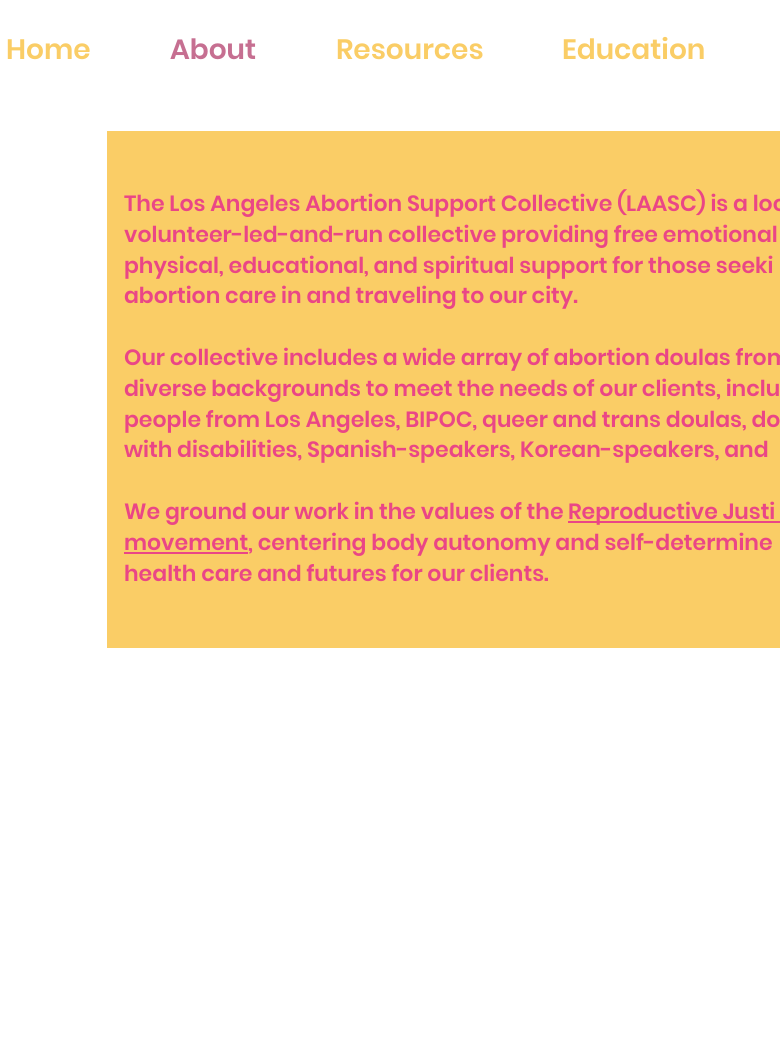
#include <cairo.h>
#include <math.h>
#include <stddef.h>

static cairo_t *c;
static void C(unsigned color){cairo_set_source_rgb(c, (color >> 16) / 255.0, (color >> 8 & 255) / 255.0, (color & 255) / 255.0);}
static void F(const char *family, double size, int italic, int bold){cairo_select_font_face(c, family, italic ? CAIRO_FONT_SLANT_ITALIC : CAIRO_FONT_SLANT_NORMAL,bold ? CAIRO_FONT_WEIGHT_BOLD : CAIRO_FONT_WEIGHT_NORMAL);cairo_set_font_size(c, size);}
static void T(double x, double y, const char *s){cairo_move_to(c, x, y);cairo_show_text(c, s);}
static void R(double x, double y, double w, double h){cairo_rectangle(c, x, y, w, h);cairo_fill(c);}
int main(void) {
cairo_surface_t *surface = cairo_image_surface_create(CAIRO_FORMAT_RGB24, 780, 1051);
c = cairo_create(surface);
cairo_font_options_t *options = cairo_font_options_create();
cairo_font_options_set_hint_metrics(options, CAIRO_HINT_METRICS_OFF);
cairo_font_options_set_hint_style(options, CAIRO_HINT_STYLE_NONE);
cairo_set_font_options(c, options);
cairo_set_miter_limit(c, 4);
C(0xffffff);
cairo_paint(c);
F("Poppins SemiBold",28,0,0);
C(0xfacd66);
T(6,59,"Home");
C(0xc66f91);
T(170,59,"About");
C(0xfacd66);
T(336,59,"Resources");
T(562,59,"Education");
R(107,131,673,517);
F("Poppins SemiBold",22,0,0);
C(0xea4686);
T(124,211,"The Los Angeles Abortion Support Collective (LAASC) is a loc");
T(124,242,"volunteer-led-and-run collective providing free emotional");
T(124,273,"physical, educational, and spiritual support for those seeki");
T(124,303,"abortion care in and traveling to our city.");
T(124,365,"Our collective includes a wide array of abortion doulas from");
T(124,396,"diverse backgrounds to meet the needs of our clients, inclu");
T(124,427,"people from Los Angeles, BIPOC, queer and trans doulas, do");
T(124,457,"with disabilities, Spanish-speakers, Korean-speakers, and");
T(124,519,"We ground our work in the values of the");
R(568,521,212,2);
T(568,519,"Reproductive Justi");
R(124,552,124,2);
T(124,550,"movement, centering body autonomy and self-determine");
T(124,581,"health care and futures for our clients.");
cairo_surface_write_to_png(surface, "o.png");
cairo_font_options_destroy(options);
cairo_destroy(c);
cairo_surface_destroy(surface);
return 0;
}
